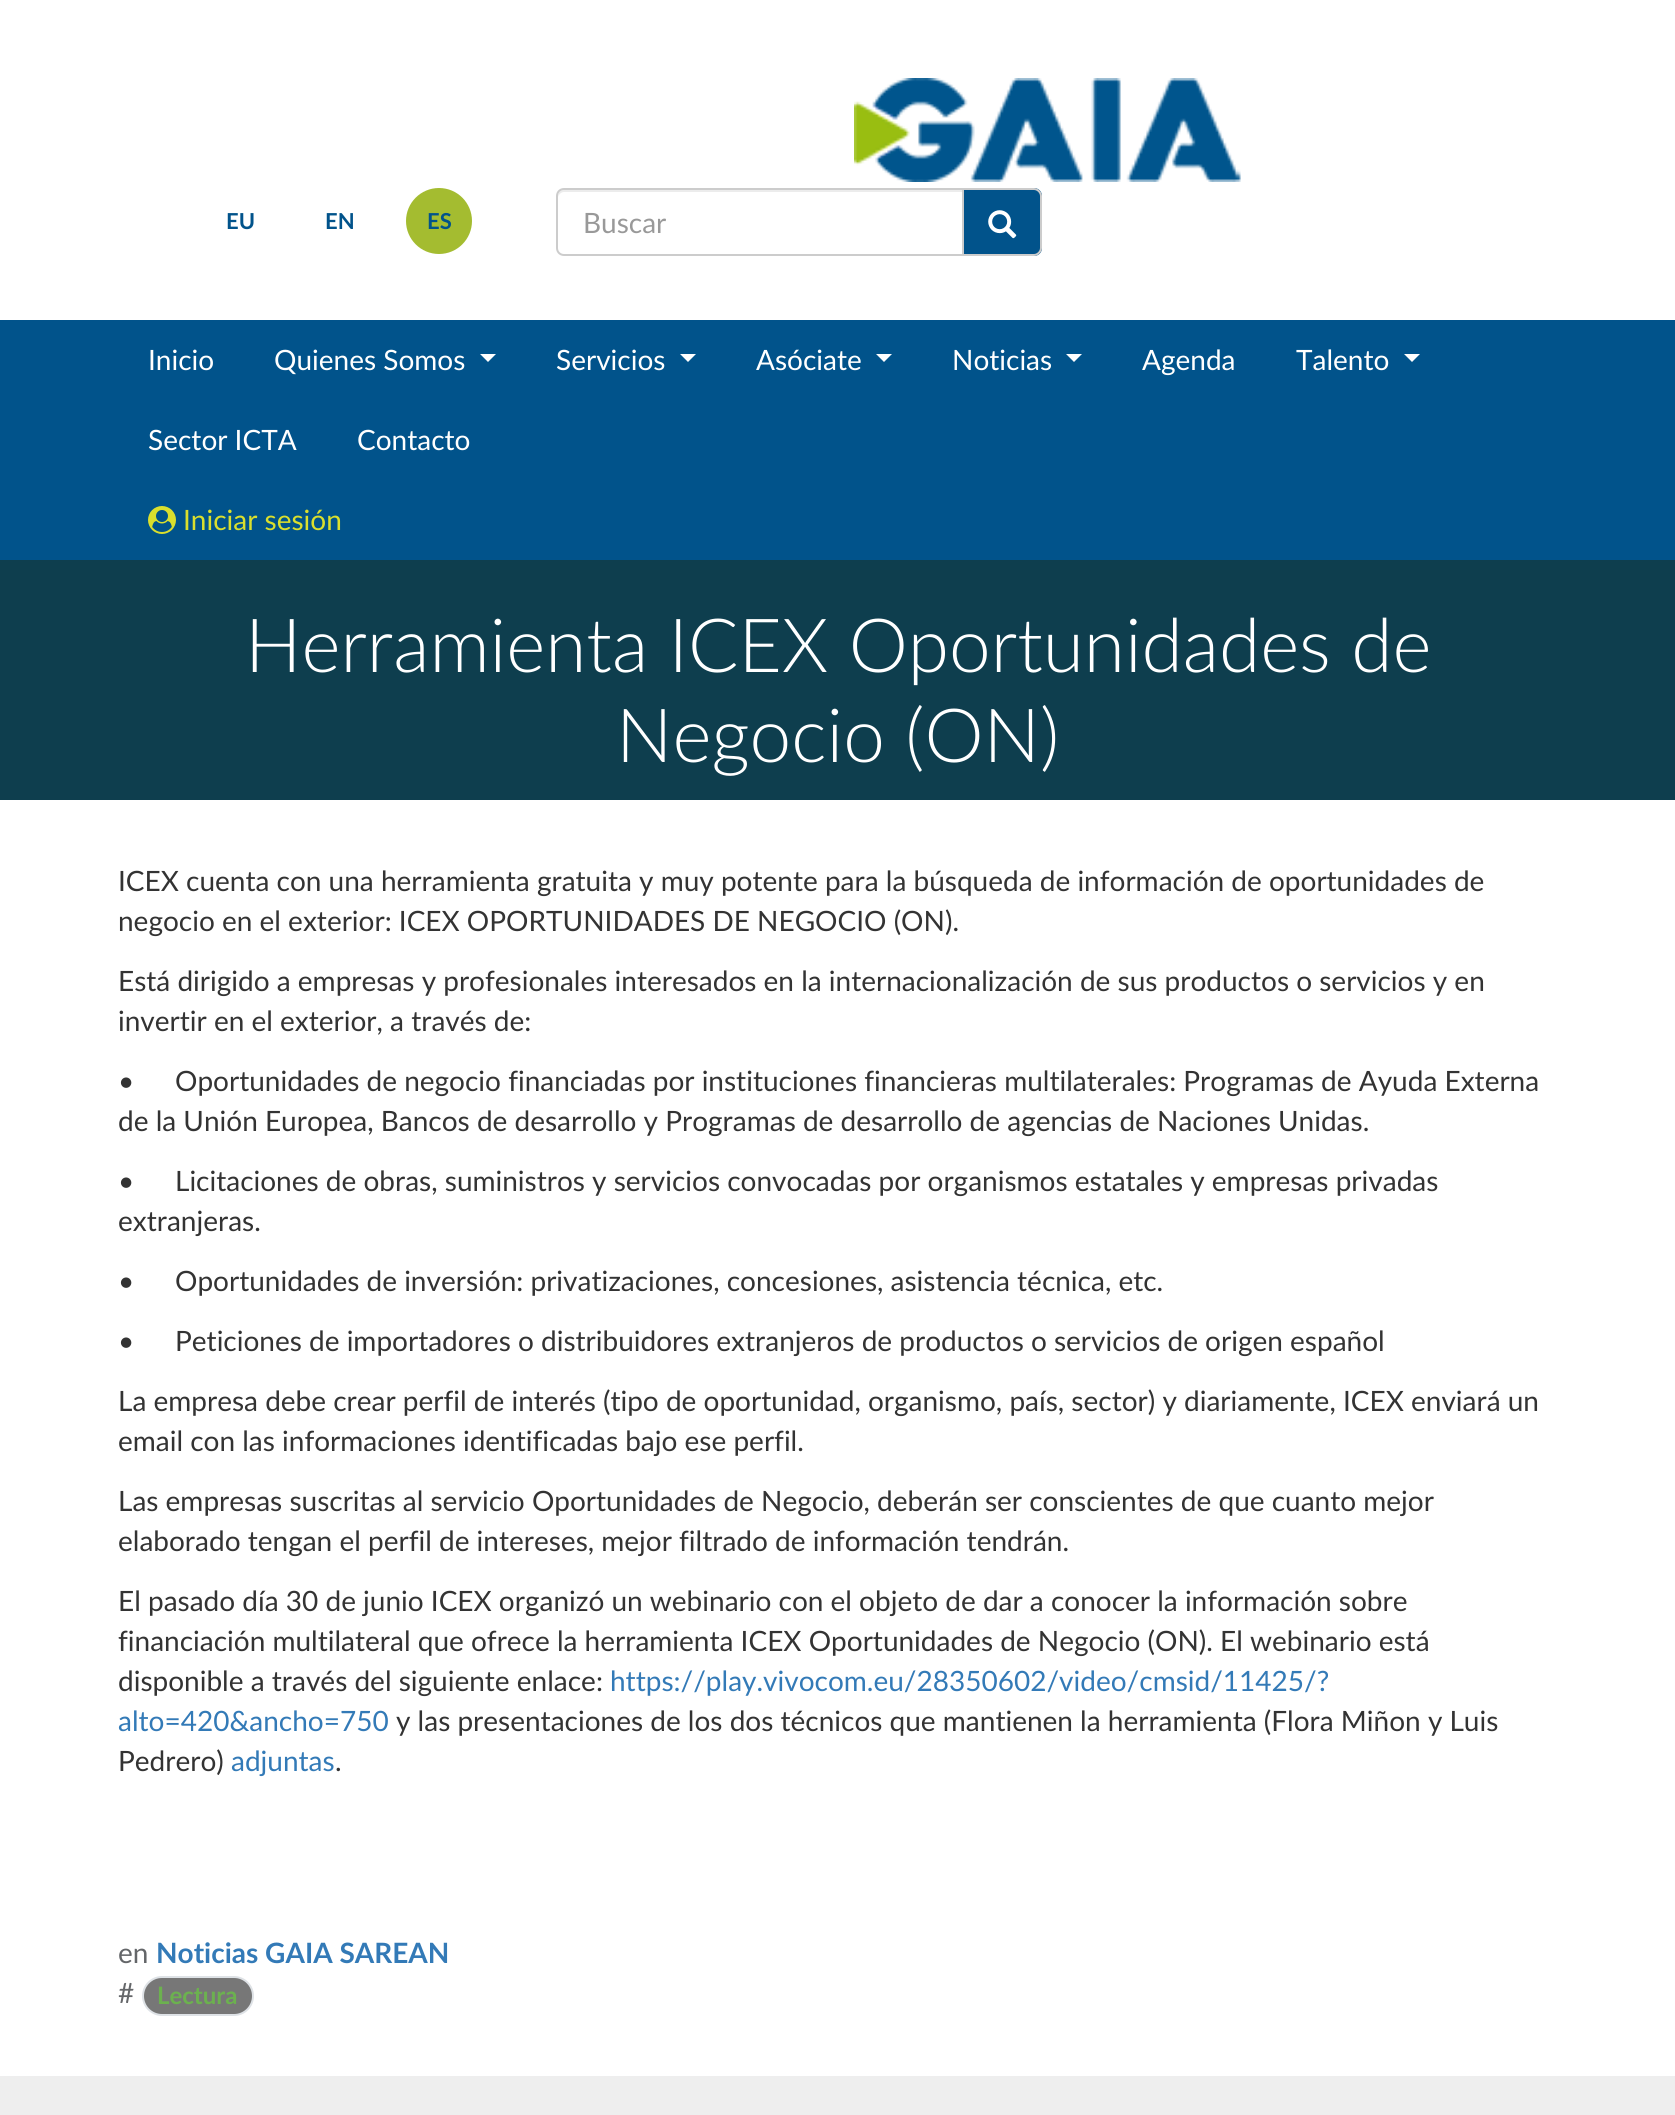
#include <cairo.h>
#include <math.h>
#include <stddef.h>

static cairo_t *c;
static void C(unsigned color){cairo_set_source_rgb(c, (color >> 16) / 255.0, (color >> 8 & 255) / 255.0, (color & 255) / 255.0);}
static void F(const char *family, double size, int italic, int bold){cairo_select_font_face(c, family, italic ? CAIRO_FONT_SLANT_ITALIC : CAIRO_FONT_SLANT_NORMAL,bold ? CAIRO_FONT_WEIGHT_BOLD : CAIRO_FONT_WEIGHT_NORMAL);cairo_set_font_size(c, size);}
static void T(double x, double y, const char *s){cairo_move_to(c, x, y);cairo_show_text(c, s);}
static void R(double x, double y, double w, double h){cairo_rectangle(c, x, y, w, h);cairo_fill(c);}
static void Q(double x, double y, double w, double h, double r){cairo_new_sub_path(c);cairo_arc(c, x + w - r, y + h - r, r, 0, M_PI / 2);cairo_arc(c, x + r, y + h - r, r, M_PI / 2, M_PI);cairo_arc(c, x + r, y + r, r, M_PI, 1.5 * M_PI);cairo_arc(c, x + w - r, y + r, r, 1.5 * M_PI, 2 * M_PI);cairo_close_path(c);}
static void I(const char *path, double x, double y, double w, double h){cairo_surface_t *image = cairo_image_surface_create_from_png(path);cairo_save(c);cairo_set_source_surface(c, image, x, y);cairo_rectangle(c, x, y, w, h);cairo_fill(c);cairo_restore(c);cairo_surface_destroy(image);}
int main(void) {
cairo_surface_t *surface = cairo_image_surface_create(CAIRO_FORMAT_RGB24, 1675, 2115);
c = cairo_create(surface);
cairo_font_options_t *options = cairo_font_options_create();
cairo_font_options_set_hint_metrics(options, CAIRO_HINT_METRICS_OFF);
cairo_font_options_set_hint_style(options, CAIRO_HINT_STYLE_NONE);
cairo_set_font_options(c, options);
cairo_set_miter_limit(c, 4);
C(0xffffff);
cairo_paint(c);
I("1.png",854,78,387,104);
F("Lato",22,0,1);
C(0x01538b);
T(226,229,"EU");
T(325,229,"EN");
C(0xa4bc30);
cairo_new_path(c);
cairo_arc(c,439,221,33,0,2 * M_PI);
cairo_fill(c);
C(0x01538b);
T(427,229,"ES");
C(0xececec);
cairo_new_path(c);
cairo_move_to(c,564,192);
cairo_line_to(c,962,192);
cairo_line_to(c,962,190);
cairo_line_to(c,564,190);
cairo_curve_to(c,559,190,558,194,558,198);
cairo_curve_to(c,558,195,561,192,564,192);
cairo_close_path(c);
cairo_fill(c);
cairo_new_path(c);
cairo_move_to(c,564,189);
cairo_line_to(c,963,189);
cairo_line_to(c,963,255);
cairo_line_to(c,564,255);
cairo_curve_to(c,560,255,557,252,557,248);
cairo_line_to(c,557,196);
cairo_curve_to(c,557,192,560,189,564,189);
cairo_close_path(c);
C(0xcccccc);
cairo_stroke(c);
F("Lato",28,0,0);
C(0x999999);
T(583,233,"Buscar");
C(0x01538b);
cairo_new_path(c);
cairo_move_to(c,964,188);
cairo_line_to(c,1034,188);
cairo_curve_to(c,1038.5,188,1042,191.5,1042,196);
cairo_line_to(c,1042,248);
cairo_curve_to(c,1042,252.5,1038.5,256,1034,256);
cairo_line_to(c,964,256);
cairo_close_path(c);
cairo_fill(c);
C(0xcccccc);
cairo_set_fill_rule(c,CAIRO_FILL_RULE_EVEN_ODD);
cairo_new_path(c);
cairo_move_to(c,964,188);
cairo_line_to(c,1034,188);
cairo_curve_to(c,1038,188,1042,192,1042,196);
cairo_line_to(c,1042,248);
cairo_curve_to(c,1042,252,1038,256,1034,256);
cairo_line_to(c,964,256);
cairo_close_path(c);
cairo_move_to(c,964,190);
cairo_line_to(c,1034,190);
cairo_curve_to(c,1037,190,1040,193,1040,196);
cairo_line_to(c,1040,248);
cairo_curve_to(c,1040,251,1037,254,1034,254);
cairo_line_to(c,964,254);
cairo_close_path(c);
cairo_fill(c);
I("2.png",988,210,29,29);
C(0x01538b);
R(0,320,1675,240);
C(0xffffff);
T(148,370,"Inicio");
T(274,370,"Quienes Somos");
cairo_set_fill_rule(c,CAIRO_FILL_RULE_WINDING);
cairo_new_path(c);
cairo_move_to(c,480,354);
cairo_line_to(c,496,354);
cairo_line_to(c,488,362);
cairo_close_path(c);
cairo_fill(c);
T(556,370,"Servicios");
cairo_new_path(c);
cairo_move_to(c,680,354);
cairo_line_to(c,696,354);
cairo_line_to(c,688,362);
cairo_close_path(c);
cairo_fill(c);
T(756,370,"Asóciate");
cairo_new_path(c);
cairo_move_to(c,876,354);
cairo_line_to(c,892,354);
cairo_line_to(c,884,362);
cairo_close_path(c);
cairo_fill(c);
T(952,370,"Noticias");
cairo_new_path(c);
cairo_move_to(c,1066,354);
cairo_line_to(c,1082,354);
cairo_line_to(c,1074,362);
cairo_close_path(c);
cairo_fill(c);
T(1142,370,"Agenda");
T(1296,370,"Talento");
cairo_new_path(c);
cairo_move_to(c,1404,354);
cairo_line_to(c,1420,354);
cairo_line_to(c,1412,362);
cairo_close_path(c);
cairo_fill(c);
T(148,450,"Sector ICTA");
T(357,450,"Contacto");
I("3.png",148,506,28,28);
C(0xdadf2d);
T(183,530,"Iniciar sesión");
C(0x0e3e4e);
R(0,560,1675,240);
F("Lato Light",74.75,0,0);
C(0xffffff);
T(245,672,"Herramienta ICEX Oportunidades de");
T(616,762,"Negocio (ON)");
F("Lato",28,0,0);
C(0x333333);
T(118,891,"ICEX cuenta con una herramienta gratuita y muy potente para la búsqueda de información de oportunidades de");
T(118,931,"negocio en el exterior: ICEX OPORTUNIDADES DE NEGOCIO (ON).");
T(118,991,"Está dirigido a empresas y profesionales interesados en la internacionalización de sus productos o servicios y en");
T(118,1031,"invertir en el exterior, a través de:");
T(118,1091,"•");
T(175,1091,"Oportunidades de negocio financiadas por instituciones financieras multilaterales: Programas de Ayuda Externa");
T(118,1131,"de la Unión Europea, Bancos de desarrollo y Programas de desarrollo de agencias de Naciones Unidas.");
T(118,1191,"•");
T(175,1191,"Licitaciones de obras, suministros y servicios convocadas por organismos estatales y empresas privadas");
T(118,1231,"extranjeras.");
T(118,1291,"•");
T(175,1291,"Oportunidades de inversión: privatizaciones, concesiones, asistencia técnica, etc.");
T(118,1351,"•");
T(175,1351,"Peticiones de importadores o distribuidores extranjeros de productos o servicios de origen español");
T(118,1411,"La empresa debe crear perfil de interés (tipo de oportunidad, organismo, país, sector) y diariamente, ICEX enviará un");
T(118,1451,"email con las informaciones identificadas bajo ese perfil.");
T(118,1511,"Las empresas suscritas al servicio Oportunidades de Negocio, deberán ser conscientes de que cuanto mejor");
T(118,1551,"elaborado tengan el perfil de intereses, mejor filtrado de información tendrán.");
T(118,1611,"El pasado día 30 de junio ICEX organizó un webinario con el objeto de dar a conocer la información sobre");
T(118,1651,"financiación multilateral que ofrece la herramienta ICEX Oportunidades de Negocio (ON). El webinario está");
T(118,1691,"disponible a través del siguiente enlace:");
C(0x337ab7);
T(610,1691,"https://play.vivocom.eu/28350602/video/cmsid/11425/?");
T(118,1731,"alto=420&ancho=750");
C(0x333333);
T(396,1731,"y las presentaciones de los dos técnicos que mantienen la herramienta (Flora Miñon y Luis");
T(118,1771,"Pedrero)");
C(0x337ab7);
T(231,1771,"adjuntas");
C(0x333333);
T(335,1771,".");
C(0x646669);
T(118,1963,"en");
F("Lato",28,0,1);
C(0x337ab7);
T(156,1963,"Noticias GAIA SAREAN");
F("Lato",28,0,0);
C(0x646669);
T(118,2003,"#");
C(0x777777);
Q(143,1977,110,38,19);
cairo_fill_preserve(c);
C(0xdee2e6);
cairo_stroke(c);
F("Lato",24,0,1);
C(0x6cb14f);
T(157,2004,"Lectura");
C(0xeeeeee);
R(0,2076,1675,39);
cairo_surface_write_to_png(surface, "o.png");
cairo_font_options_destroy(options);
cairo_destroy(c);
cairo_surface_destroy(surface);
return 0;
}
